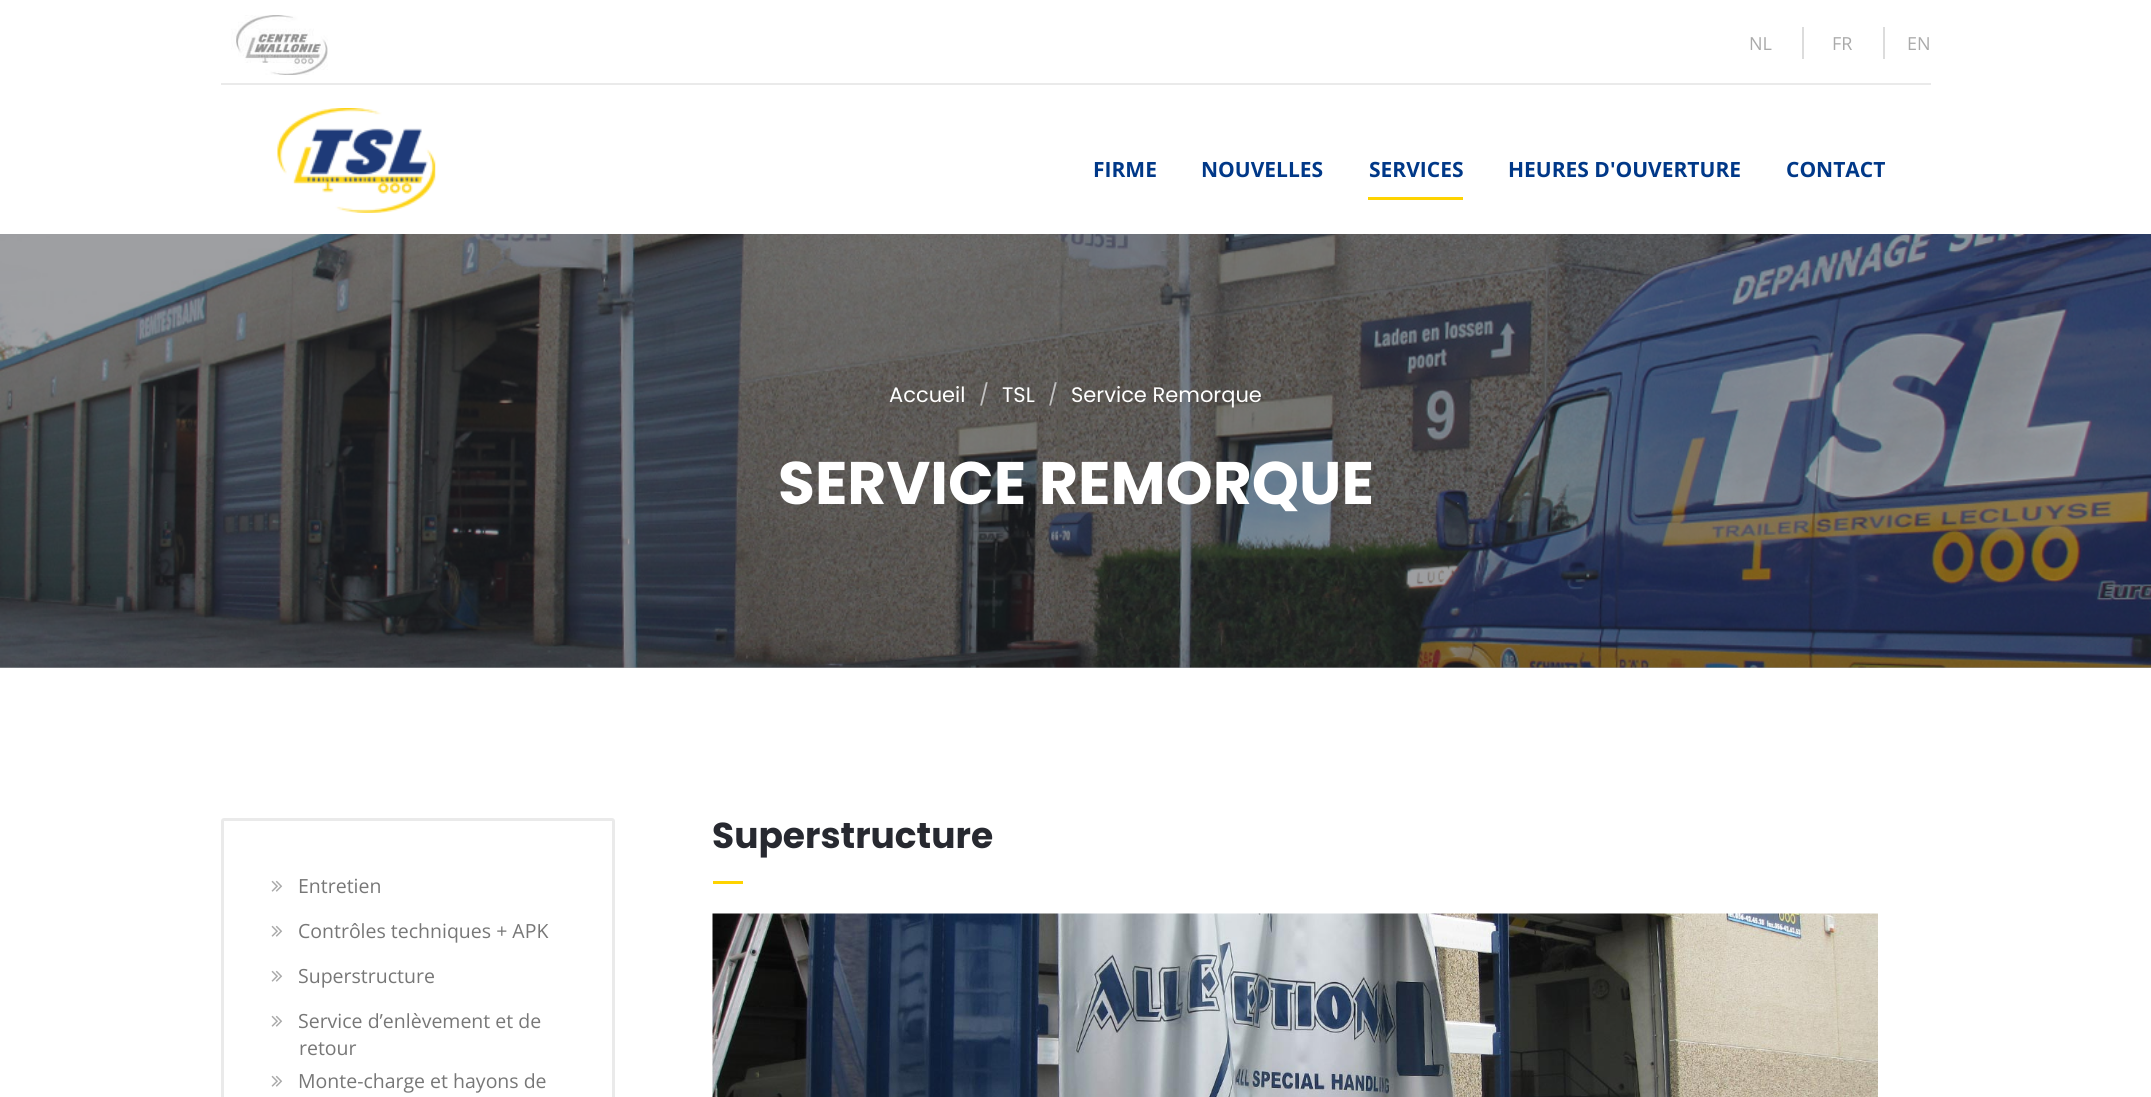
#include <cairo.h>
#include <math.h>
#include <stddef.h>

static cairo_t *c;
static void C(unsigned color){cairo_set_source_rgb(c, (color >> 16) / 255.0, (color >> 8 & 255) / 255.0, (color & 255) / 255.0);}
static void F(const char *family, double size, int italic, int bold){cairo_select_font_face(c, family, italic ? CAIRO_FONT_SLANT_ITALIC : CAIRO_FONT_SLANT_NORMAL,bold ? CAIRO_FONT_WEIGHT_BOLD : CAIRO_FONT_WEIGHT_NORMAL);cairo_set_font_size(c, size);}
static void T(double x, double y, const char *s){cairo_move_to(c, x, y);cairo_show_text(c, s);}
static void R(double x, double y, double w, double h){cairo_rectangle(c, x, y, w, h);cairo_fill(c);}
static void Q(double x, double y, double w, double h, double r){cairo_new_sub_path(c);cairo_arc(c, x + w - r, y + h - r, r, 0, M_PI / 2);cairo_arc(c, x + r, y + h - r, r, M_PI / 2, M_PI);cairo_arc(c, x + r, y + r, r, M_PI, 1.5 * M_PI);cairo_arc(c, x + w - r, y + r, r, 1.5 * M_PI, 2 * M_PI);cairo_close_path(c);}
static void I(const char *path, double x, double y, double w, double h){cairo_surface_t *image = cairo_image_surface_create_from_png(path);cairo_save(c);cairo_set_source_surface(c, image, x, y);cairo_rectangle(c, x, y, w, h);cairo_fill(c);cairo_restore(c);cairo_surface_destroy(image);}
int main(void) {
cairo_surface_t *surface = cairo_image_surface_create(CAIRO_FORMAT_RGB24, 2151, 1097);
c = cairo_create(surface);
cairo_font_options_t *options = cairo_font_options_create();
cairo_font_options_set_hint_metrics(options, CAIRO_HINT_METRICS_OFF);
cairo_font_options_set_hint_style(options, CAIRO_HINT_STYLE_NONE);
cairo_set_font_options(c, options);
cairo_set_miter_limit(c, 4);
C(0xffffff);
cairo_paint(c);
C(0x9e9fa2);
R(0,667,2151,1);
C(0xeaeaea);
R(221,83,1710,2);
I("1.png",231,15,97,60);
C(0xdcdcdc);
R(1802,27,2,32);
F("Open Sans",18,0,0);
C(0xaaaaaa);
T(1749,50,"NL");
C(0xdcdcdc);
R(1883,27,2,32);
C(0xaaaaaa);
T(1832,50,"FR");
T(1907,50,"EN");
I("2.png",277,108,159,105);
F("Open Sans",21,0,1);
C(0x003888);
T(1093,177,"FIRME");
T(1201,177,"NOUVELLES");
T(1369,177,"SERVICES");
C(0xfed300);
R(1368,197,95,3);
C(0x003888);
T(1508,177,"HEURES D'OUVERTURE");
T(1786,177,"CONTACT");
I("3.png",0,234,2151,434);
F("Poppins",21,0,0);
C(0xffffff);
T(889,402,"Accueil");
C(0xc1c1c1);
T(979,402,"/");
C(0xffffff);
T(1002,402,"TSL");
C(0xc1c1c1);
T(1048,402,"/");
C(0xffffff);
T(1071,402,"Service Remorque");
F("Poppins",60,0,1);
T(778,504,"SERVICE REMORQUE");
F("Poppins",36,0,1);
C(0x272930);
T(712,848,"Superstructure");
C(0xfed300);
R(713,881,30,3);
I("4.png",712,913,1166,184);
Q(222.5,819.5,391,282,1.5);
C(0xeaeaea);
cairo_set_line_width(c,3);
cairo_stroke(c);
I("5.png",271,880,12,12);
F("Open Sans",19.5,0,0);
C(0x777777);
T(298,893,"Entretien");
I("5.png",271,925,12,12);
T(298,938,"Contrôles techniques + APK");
I("5.png",271,970,12,12);
T(298,983,"Superstructure");
I("5.png",271,1015,12,12);
T(298,1028,"Service d’enlèvement et de");
T(299,1055,"retour");
I("5.png",271,1075,12,12);
T(298,1088,"Monte-charge et hayons de");
cairo_surface_write_to_png(surface, "o.png");
cairo_font_options_destroy(options);
cairo_destroy(c);
cairo_surface_destroy(surface);
return 0;
}
